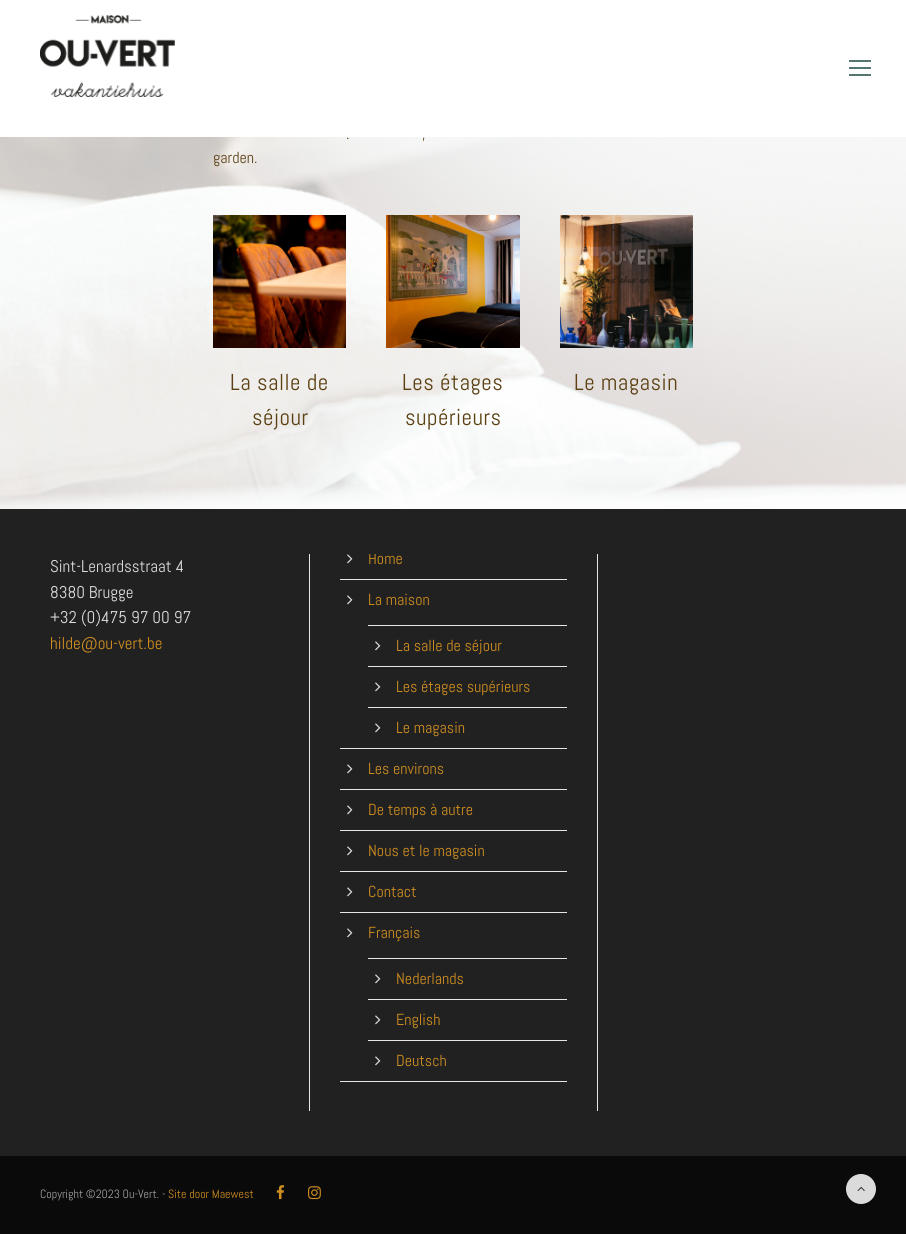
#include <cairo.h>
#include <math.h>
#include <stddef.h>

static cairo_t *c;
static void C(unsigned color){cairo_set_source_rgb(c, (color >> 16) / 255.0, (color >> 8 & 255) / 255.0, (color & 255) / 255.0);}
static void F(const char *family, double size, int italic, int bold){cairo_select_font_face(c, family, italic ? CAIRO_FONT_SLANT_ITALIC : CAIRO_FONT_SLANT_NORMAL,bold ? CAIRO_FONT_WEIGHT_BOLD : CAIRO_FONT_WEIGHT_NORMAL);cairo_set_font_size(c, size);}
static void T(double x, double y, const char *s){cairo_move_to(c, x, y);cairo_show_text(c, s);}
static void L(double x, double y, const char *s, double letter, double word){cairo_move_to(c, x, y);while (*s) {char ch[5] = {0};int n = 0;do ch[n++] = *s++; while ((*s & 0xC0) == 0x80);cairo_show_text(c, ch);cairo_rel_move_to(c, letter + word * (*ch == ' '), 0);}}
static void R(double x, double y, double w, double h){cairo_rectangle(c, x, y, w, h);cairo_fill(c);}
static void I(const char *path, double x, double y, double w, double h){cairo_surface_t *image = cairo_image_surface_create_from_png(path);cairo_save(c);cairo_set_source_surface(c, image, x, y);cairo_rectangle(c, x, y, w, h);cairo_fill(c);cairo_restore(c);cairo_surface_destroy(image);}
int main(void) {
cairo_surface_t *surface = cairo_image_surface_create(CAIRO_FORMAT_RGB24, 906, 1234);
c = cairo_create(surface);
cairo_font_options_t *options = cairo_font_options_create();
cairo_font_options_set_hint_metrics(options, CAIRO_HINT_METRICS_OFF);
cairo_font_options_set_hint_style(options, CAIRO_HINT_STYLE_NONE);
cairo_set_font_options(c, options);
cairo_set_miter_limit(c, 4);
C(0xffffff);
cairo_paint(c);
I("1.png",40,15,135,82);
C(0x547670);
R(849,60,22,2);
R(849,67,22,2);
R(849,74,22,2);
I("2.png",0,137,906,372);
F("Abel",16,0,0);
C(0x5b4012);
T(346,139,".");
T(422,139,",");
T(213,163,"garden.");
I("3.png",213,215,133,133);
F("Abel",23,0,0);
L(230,390,"La salle de",.5,0);
L(252,425,"séjour",.5,0);
I("4.png",386,215,134,133);
L(402,390,"Les étages",.5,0);
L(405,425,"supérieurs",.5,0);
I("5.png",560,215,133,133);
L(574,390,"Le magasin",.5,0);
C(0x212121);
R(0,509,906,647);
F("Abel",17,0,0);
C(0xdddddd);
T(50,572,"Sint-Lenardsstraat 4");
T(50,598,"8380 Brugge");
T(50,623,"+32 (0)475 97 00 97");
C(0xcf8e20);
T(50,649,"hilde@ou-vert.be");
C(0xe6e6e6);
R(309,554,1,557);
R(340,579,227,1);
I("6.png",347,554,6,10);
cairo_save(c);
cairo_rectangle(c,0,554,906,557);
cairo_clip(c);
F("Abel",16,0,0);
C(0xcf8e20);
T(368,564,"Home");
cairo_restore(c);
R(340,748,227,1);
I("6.png",347,595,6,10);
F("Abel",16,0,0);
C(0xcf8e20);
T(368,605,"La maison");
C(0xe6e6e6);
R(368,625,199,1);
I("6.png",375,641,6,10);
C(0xcf8e20);
T(396,651,"La salle de séjour");
C(0xe6e6e6);
R(368,666,199,1);
I("6.png",375,682,6,10);
C(0xcf8e20);
T(396,692,"Les étages supérieurs");
C(0xe6e6e6);
R(368,707,199,1);
I("6.png",375,723,6,10);
C(0xcf8e20);
T(396,733,"Le magasin");
C(0xe6e6e6);
R(340,789,227,1);
I("6.png",347,764,6,10);
C(0xcf8e20);
T(368,774,"Les environs");
C(0xe6e6e6);
R(340,830,227,1);
I("6.png",347,805,6,10);
C(0xcf8e20);
T(368,815,"De temps à autre");
C(0xe6e6e6);
R(340,871,227,1);
I("6.png",347,846,6,10);
C(0xcf8e20);
T(368,856,"Nous et le magasin");
C(0xe6e6e6);
R(340,912,227,1);
I("6.png",347,887,6,10);
C(0xcf8e20);
T(368,897,"Contact");
C(0xe6e6e6);
R(340,1081,227,1);
I("6.png",347,928,6,10);
C(0xcf8e20);
T(368,938,"Français");
C(0xe6e6e6);
R(368,958,199,1);
I("6.png",375,974,6,10);
C(0xcf8e20);
T(396,984,"Nederlands");
C(0xe6e6e6);
R(368,999,199,1);
I("6.png",375,1015,6,10);
C(0xcf8e20);
T(396,1025,"English");
C(0xe6e6e6);
R(368,1040,199,1);
I("6.png",375,1056,6,10);
C(0xcf8e20);
T(396,1066,"Deutsch");
C(0xe6e6e6);
R(597,554,1,557);
C(0x0a0a0a);
R(0,1156,906,78);
F("Abel",12,0,0);
C(0xa0a0a0);
T(40,1198,"Copyright ©2023 Ou-Vert. -");
C(0xcf8e20);
T(168,1198,"Site door Maewest");
I("7.png",276,1185,9,15);
I("8.png",308,1186,13,14);
C(0xdbdbdb);
cairo_arc(c,861,1189,15,0,2 * M_PI);
cairo_fill(c);
I("9.png",857,1186,8,5);
cairo_surface_write_to_png(surface, "o.png");
cairo_font_options_destroy(options);
cairo_destroy(c);
cairo_surface_destroy(surface);
return 0;
}
